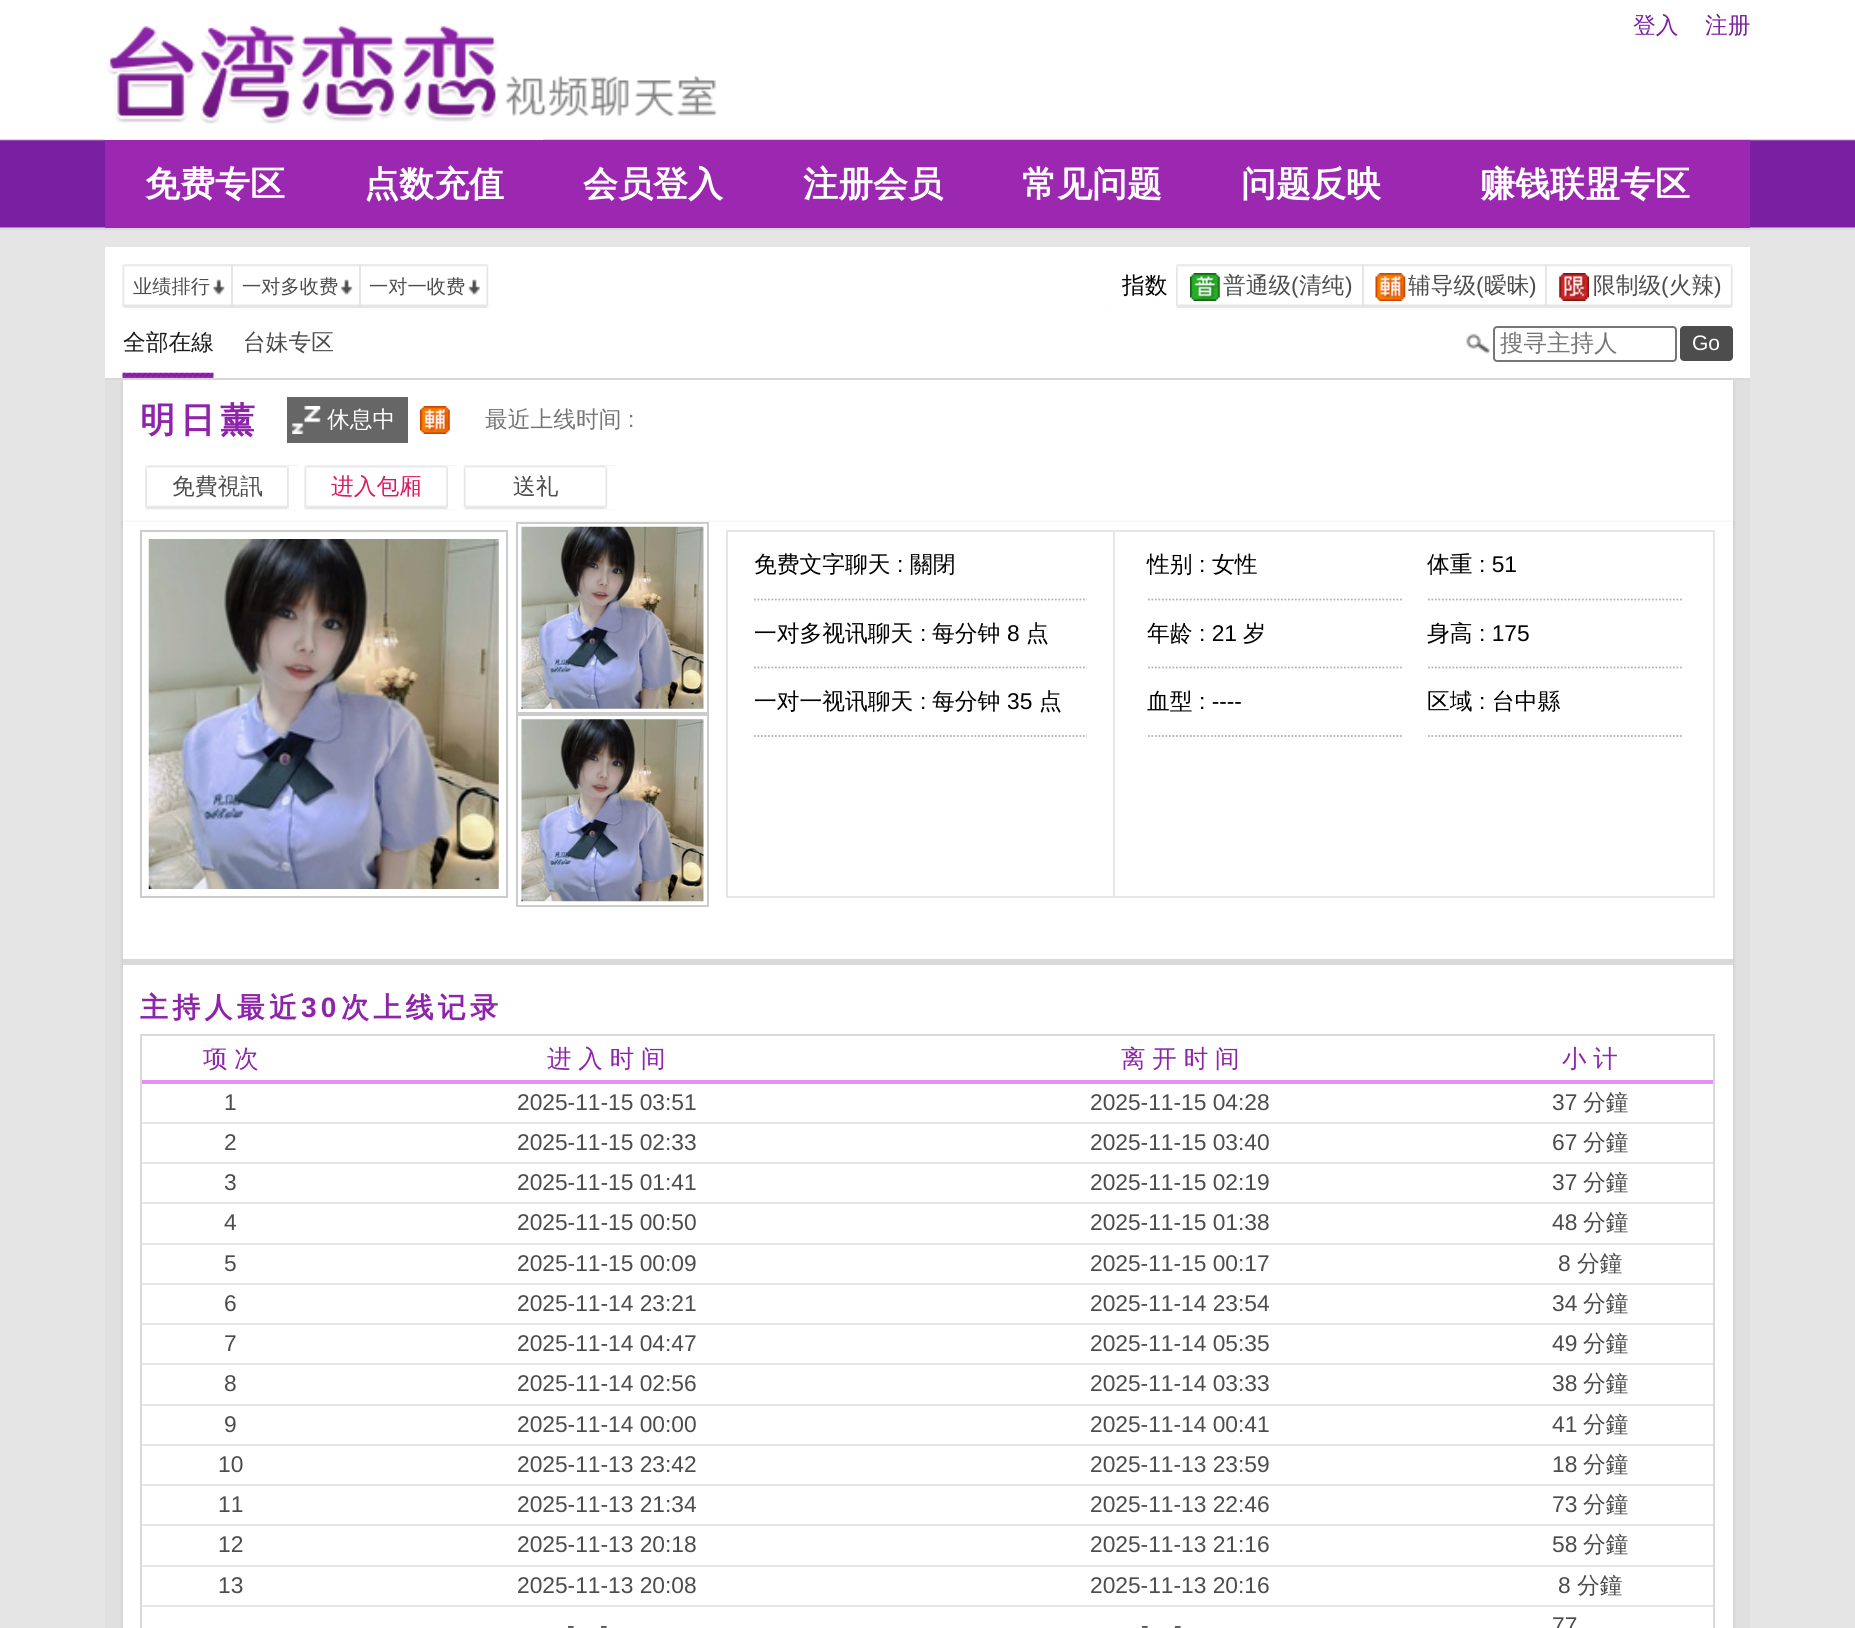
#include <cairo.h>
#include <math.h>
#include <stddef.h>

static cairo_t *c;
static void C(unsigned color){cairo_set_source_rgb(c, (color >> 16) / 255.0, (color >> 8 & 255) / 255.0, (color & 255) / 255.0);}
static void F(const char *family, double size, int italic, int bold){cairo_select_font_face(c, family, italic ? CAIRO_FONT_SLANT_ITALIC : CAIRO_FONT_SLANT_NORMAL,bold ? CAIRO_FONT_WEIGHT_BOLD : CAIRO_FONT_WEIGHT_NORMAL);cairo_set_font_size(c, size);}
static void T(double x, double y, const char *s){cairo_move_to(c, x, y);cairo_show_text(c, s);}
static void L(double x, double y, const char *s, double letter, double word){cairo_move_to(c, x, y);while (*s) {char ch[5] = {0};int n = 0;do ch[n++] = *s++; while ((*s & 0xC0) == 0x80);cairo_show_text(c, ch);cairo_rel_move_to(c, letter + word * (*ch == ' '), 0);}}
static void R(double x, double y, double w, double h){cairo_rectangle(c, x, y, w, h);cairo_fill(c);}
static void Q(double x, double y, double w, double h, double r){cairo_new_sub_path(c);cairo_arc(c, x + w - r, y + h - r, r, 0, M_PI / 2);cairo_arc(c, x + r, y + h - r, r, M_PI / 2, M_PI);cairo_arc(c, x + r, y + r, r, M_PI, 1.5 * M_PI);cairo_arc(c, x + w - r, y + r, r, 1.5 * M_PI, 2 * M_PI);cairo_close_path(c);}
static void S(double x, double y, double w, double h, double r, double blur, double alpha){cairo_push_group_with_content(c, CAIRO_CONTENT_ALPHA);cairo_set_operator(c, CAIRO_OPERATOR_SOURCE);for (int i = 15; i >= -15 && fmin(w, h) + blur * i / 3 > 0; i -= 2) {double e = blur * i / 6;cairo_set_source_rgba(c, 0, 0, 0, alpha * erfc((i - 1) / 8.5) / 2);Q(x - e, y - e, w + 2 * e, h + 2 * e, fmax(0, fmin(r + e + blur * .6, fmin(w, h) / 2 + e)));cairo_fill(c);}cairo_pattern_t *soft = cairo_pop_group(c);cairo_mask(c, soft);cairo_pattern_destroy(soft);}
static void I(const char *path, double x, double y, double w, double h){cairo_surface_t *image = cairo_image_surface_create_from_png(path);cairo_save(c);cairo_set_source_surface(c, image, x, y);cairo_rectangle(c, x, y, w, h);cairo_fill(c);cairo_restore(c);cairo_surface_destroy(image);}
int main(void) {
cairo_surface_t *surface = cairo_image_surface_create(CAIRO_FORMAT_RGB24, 1855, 1628);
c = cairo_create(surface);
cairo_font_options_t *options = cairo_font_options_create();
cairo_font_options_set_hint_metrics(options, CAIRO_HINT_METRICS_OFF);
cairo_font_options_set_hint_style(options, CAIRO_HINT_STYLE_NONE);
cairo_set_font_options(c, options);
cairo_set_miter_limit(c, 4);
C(0xe5e5e5);
cairo_paint(c);
I("1.png",0,0,1855,228);
C(0xd9d9d9);
R(0,228,1855,2);
C(0xffffff);
R(105,139,438,1);
I("2.png",107,25,610,99);
F("WenQuanYi Zen Hei Medium",22.75,0,0);
C(0x7b1fa2);
T(1633,33,"登入");
T(1705,33,"注册");
C(0x9c27b0);
R(105,140,1645,88);
F("WenQuanYi Zen Hei",35,0,1);
C(0xffffff);
T(145,196,"免费专区");
T(364,196,"点数充值");
T(583,196,"会员登入");
T(803,196,"注册会员");
T(1022,196,"常见问题");
T(1241,196,"问题反映");
T(1480,196,"赚钱联盟专区");
C(0xe0e0e0);
R(105,380,1645,1248);
C(0xffffff);
R(105,247,1645,131);
C(0xd9d9d9);
R(105,378,1645,2);
I("3.png",122,264,367,44);
I("4.png",122,264,3,44);
F("WenQuanYi Zen Hei Medium",19.25,0,0);
C(0x4c4c4c);
T(133,293,"业绩排行");
I("5.png",213,279,12,16);
C(0xe6e6e6);
R(231,264,2,44);
C(0x4c4c4c);
T(242,293,"一对多收费");
I("6.png",340,279,13,16);
C(0xe6e6e6);
R(359,264,2,44);
C(0x4c4c4c);
T(369,293,"一对一收费");
I("7.png",468,279,12,16);
I("8.png",486,264,3,44);
I("9.png",1107,264,626,44);
C(0xffffff);
R(1108,264,68,44);
F("WenQuanYi Zen Hei Medium",22.75,0,0);
C(0x000000);
T(1122,293,"指数");
I("10.png",1176,264,2,44);
I("11.png",1190,273,30,28);
C(0x4c4c4c);
T(1223,293,"普通级");
F("Liberation Sans",22.75,0,0);
T(1291,293,"(");
F("WenQuanYi Zen Hei Medium",22.75,0,0);
T(1299,293,"清纯");
F("Liberation Sans",22.75,0,0);
T(1345,293,")");
C(0xe6e6e6);
R(1362,264,2,44);
I("12.png",1375,273,31,28);
F("WenQuanYi Zen Hei Medium",22.75,0,0);
C(0x4c4c4c);
T(1408,293,"辅导级");
F("Liberation Sans",22.75,0,0);
T(1476,293,"(");
F("WenQuanYi Zen Hei Medium",22.75,0,0);
T(1484,293,"暧昧");
F("Liberation Sans",22.75,0,0);
T(1529,293,")");
C(0xe6e6e6);
R(1545,264,2,44);
I("13.png",1559,273,30,28);
F("WenQuanYi Zen Hei Medium",22.75,0,0);
C(0x4c4c4c);
T(1593,293,"限制级");
F("Liberation Sans",22.75,0,0);
T(1661,293,"(");
F("WenQuanYi Zen Hei Medium",22.75,0,0);
T(1669,293,"火辣");
F("Liberation Sans",22.75,0,0);
T(1714,293,")");
I("14.png",1730,264,3,44);
C(0x000000);
S(123,382,1610,141,0,2,.15);
I("15.png",122,372,92,6);
F("WenQuanYi Zen Hei Medium",22.75,0,0);
C(0x1a1a1a);
T(123,350,"全部在線");
C(0x4c4c4c);
T(243,350,"台妹专区");
I("16.png",1466,333,24,21);
Q(1494,327,182,34,3);
C(0x767676);
cairo_stroke(c);
F("WenQuanYi Zen Hei Medium",23.5,0,0);
C(0x757575);
T(1500,351,"搜寻主持人");
C(0x4d4d4d);
Q(1680,326,53,35,4);
cairo_fill(c);
F("Liberation Sans",21,0,0);
C(0xffffff);
T(1692,350,"Go");
R(123,380,1610,142);
F("WenQuanYi Zen Hei",35,0,1);
C(0x8e24aa);
L(140,432,"明日薰",5,0);
C(0x666666);
R(287,397,121,46);
I("17.png",292,406,29,28);
F("WenQuanYi Zen Hei Medium",22.75,0,0);
C(0xffffff);
T(327,427,"休息中");
I("18.png",420,406,30,28);
C(0x757575);
T(485,427,"最近上线时间");
F("Liberation Sans",22.75,0,0);
T(628,427,":");
I("19.png",145,465,153,45);
I("20.png",145,466,2,43);
F("WenQuanYi Zen Hei Medium",22.75,0,0);
C(0x4c4c4c);
T(172,494,"免費視訊");
I("21.png",287,466,2,43);
C(0xffffff);
R(289,466,9,43);
I("22.png",304,465,153,45);
I("23.png",304,466,3,43);
C(0xd81b60);
T(331,494,"进入包厢");
I("24.png",446,466,2,43);
C(0xffffff);
R(448,466,9,43);
I("25.png",463,465,153,45);
I("26.png",463,466,3,43);
C(0x4c4c4c);
T(513,494,"送礼");
C(0xffffff);
R(607,466,9,43);
I("27.png",605,466,3,43);
C(0x000000);
S(123,523,1610,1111,0,2,.15);
C(0xffffff);
R(123,522,1610,1106);
cairo_rectangle(c,141,531,366,366);
C(0xcccccc);
cairo_stroke(c);
I("28.png",148,539,351,350);
cairo_rectangle(c,517,523,191,190);
cairo_stroke(c);
I("29.png",521,526,183,183);
cairo_rectangle(c,517,715,191,191);
cairo_stroke(c);
I("30.png",521,719,183,183);
C(0xe6e6e6);
R(726,530,989,368);
C(0xffffff);
R(728,532,385,364);
cairo_new_path(c);
cairo_move_to(c,754,599.5);
cairo_line_to(c,1087,599.5);
C(0xb2b2b2);
cairo_set_line_width(c,1.8);
cairo_set_dash(c,(double[]){1.75,1.75},2,0);
cairo_stroke(c);
C(0x000000);
T(754,572,"免费文字聊天");
F("Liberation Sans",22.75,0,0);
T(897,572,":");
F("WenQuanYi Zen Hei Medium",22.75,0,0);
T(910,572,"關閉");
cairo_new_path(c);
cairo_move_to(c,754,667.5);
cairo_line_to(c,1087,667.5);
C(0xb2b2b2);
cairo_stroke(c);
C(0x000000);
T(754,641,"一对多视讯聊天");
F("Liberation Sans",22.75,0,0);
T(920,641,":");
F("WenQuanYi Zen Hei Medium",22.75,0,0);
T(932,641,"每分钟");
F("Liberation Sans",22.75,0,0);
T(1007,641,"8");
F("WenQuanYi Zen Hei Medium",22.75,0,0);
T(1026,641,"点");
cairo_new_path(c);
cairo_move_to(c,754,736);
cairo_line_to(c,1087,736);
C(0xb2b2b2);
cairo_stroke(c);
C(0x000000);
T(754,709,"一对一视讯聊天");
F("Liberation Sans",22.75,0,0);
T(920,709,":");
F("WenQuanYi Zen Hei Medium",22.75,0,0);
T(932,709,"每分钟");
F("Liberation Sans",22.75,0,0);
T(1007,709,"35");
F("WenQuanYi Zen Hei Medium",22.75,0,0);
T(1039,709,"点");
C(0xffffff);
R(1115,532,598,364);
cairo_new_path(c);
cairo_move_to(c,1148,599.5);
cairo_line_to(c,1402,599.5);
C(0xb2b2b2);
cairo_stroke(c);
C(0x000000);
T(1147,572,"性别");
F("Liberation Sans",22.75,0,0);
T(1199,572,":");
F("WenQuanYi Zen Hei Medium",22.75,0,0);
T(1212,572,"女性");
cairo_new_path(c);
cairo_move_to(c,1428,599.5);
cairo_line_to(c,1682,599.5);
C(0xb2b2b2);
cairo_stroke(c);
C(0x000000);
T(1427,572,"体重");
F("Liberation Sans",22.75,0,0);
T(1479,572,": 51");
cairo_new_path(c);
cairo_move_to(c,1148,667.5);
cairo_line_to(c,1402,667.5);
C(0xb2b2b2);
cairo_stroke(c);
F("WenQuanYi Zen Hei Medium",22.75,0,0);
C(0x000000);
T(1147,641,"年龄");
F("Liberation Sans",22.75,0,0);
T(1199,641,": 21");
F("WenQuanYi Zen Hei Medium",22.75,0,0);
T(1243,641,"岁");
cairo_new_path(c);
cairo_move_to(c,1428,667.5);
cairo_line_to(c,1682,667.5);
C(0xb2b2b2);
cairo_stroke(c);
C(0x000000);
T(1427,641,"身高");
F("Liberation Sans",22.75,0,0);
T(1479,641,": 175");
cairo_new_path(c);
cairo_move_to(c,1148,736);
cairo_line_to(c,1402,736);
C(0xb2b2b2);
cairo_stroke(c);
F("WenQuanYi Zen Hei Medium",22.75,0,0);
C(0x000000);
T(1147,709,"血型");
F("Liberation Sans",22.75,0,0);
T(1199,709,": ----");
cairo_new_path(c);
cairo_move_to(c,1428,736);
cairo_line_to(c,1682,736);
C(0xb2b2b2);
cairo_stroke(c);
F("WenQuanYi Zen Hei Medium",22.75,0,0);
C(0x000000);
T(1427,709,"区域");
F("Liberation Sans",22.75,0,0);
T(1479,709,":");
F("WenQuanYi Zen Hei Medium",22.75,0,0);
T(1492,709,"台中縣");
C(0xd9d9d9);
R(123,959,1610,6);
F("WenQuanYi Zen Hei",28,0,1);
C(0x8e24aa);
L(140,1017,"主持人最近",4.25,0);
F("Liberation Sans",28,0,1);
L(301,1017,"30",4.25,0);
F("WenQuanYi Zen Hei",28,0,1);
L(341,1017,"次上线记录",4.25,0);
cairo_rectangle(c,141,1035,1573,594);
C(0xd9d9d9);
cairo_set_line_width(c,2);
cairo_set_dash(c,NULL,0,0);
cairo_stroke(c);
C(0xe291f2);
R(142,1080,1571,4);
F("WenQuanYi Zen Hei Medium",24.5,0,0);
C(0x8e24aa);
L(203,1067,"项 次",0,-.5);
L(547,1067,"进 入 时 间",0,-.5);
L(1121,1067,"离 开 时 间",0,-.5);
L(1562,1067,"小 计",0,-.5);
C(0xe6e6e6);
R(142,1122,1571,2);
F("Liberation Sans",22.75,0,0);
C(0x4c4c4c);
T(224,1110,"1");
T(517,1110,"2025-11-15 03:51");
T(1090,1110,"2025-11-15 04:28");
T(1552,1110,"37");
F("WenQuanYi Zen Hei Medium",22.75,0,0);
T(1583,1110,"分鐘");
C(0xe6e6e6);
R(142,1162,1571,2);
F("Liberation Sans",22.75,0,0);
C(0x4c4c4c);
T(224,1150,"2");
T(517,1150,"2025-11-15 02:33");
T(1090,1150,"2025-11-15 03:40");
T(1552,1150,"67");
F("WenQuanYi Zen Hei Medium",22.75,0,0);
T(1583,1150,"分鐘");
C(0xe6e6e6);
R(142,1202,1571,2);
F("Liberation Sans",22.75,0,0);
C(0x4c4c4c);
T(224,1190,"3");
T(517,1190,"2025-11-15 01:41");
T(1090,1190,"2025-11-15 02:19");
T(1552,1190,"37");
F("WenQuanYi Zen Hei Medium",22.75,0,0);
T(1583,1190,"分鐘");
C(0xe6e6e6);
R(142,1243,1571,2);
F("Liberation Sans",22.75,0,0);
C(0x4c4c4c);
T(224,1230,"4");
T(517,1230,"2025-11-15 00:50");
T(1090,1230,"2025-11-15 01:38");
T(1552,1230,"48");
F("WenQuanYi Zen Hei Medium",22.75,0,0);
T(1583,1230,"分鐘");
C(0xe6e6e6);
R(142,1283,1571,2);
F("Liberation Sans",22.75,0,0);
C(0x4c4c4c);
T(224,1271,"5");
T(517,1271,"2025-11-15 00:09");
T(1090,1271,"2025-11-15 00:17");
T(1558,1271,"8");
F("WenQuanYi Zen Hei Medium",22.75,0,0);
T(1577,1271,"分鐘");
C(0xe6e6e6);
R(142,1323,1571,2);
F("Liberation Sans",22.75,0,0);
C(0x4c4c4c);
T(224,1311,"6");
T(517,1311,"2025-11-14 23:21");
T(1090,1311,"2025-11-14 23:54");
T(1552,1311,"34");
F("WenQuanYi Zen Hei Medium",22.75,0,0);
T(1583,1311,"分鐘");
C(0xe6e6e6);
R(142,1363,1571,2);
F("Liberation Sans",22.75,0,0);
C(0x4c4c4c);
T(224,1351,"7");
T(517,1351,"2025-11-14 04:47");
T(1090,1351,"2025-11-14 05:35");
T(1552,1351,"49");
F("WenQuanYi Zen Hei Medium",22.75,0,0);
T(1583,1351,"分鐘");
C(0xe6e6e6);
R(142,1404,1571,2);
F("Liberation Sans",22.75,0,0);
C(0x4c4c4c);
T(224,1391,"8");
T(517,1391,"2025-11-14 02:56");
T(1090,1391,"2025-11-14 03:33");
T(1552,1391,"38");
F("WenQuanYi Zen Hei Medium",22.75,0,0);
T(1583,1391,"分鐘");
C(0xe6e6e6);
R(142,1444,1571,2);
F("Liberation Sans",22.75,0,0);
C(0x4c4c4c);
T(224,1432,"9");
T(517,1432,"2025-11-14 00:00");
T(1090,1432,"2025-11-14 00:41");
T(1552,1432,"41");
F("WenQuanYi Zen Hei Medium",22.75,0,0);
T(1583,1432,"分鐘");
C(0xe6e6e6);
R(142,1484,1571,2);
F("Liberation Sans",22.75,0,0);
C(0x4c4c4c);
T(218,1472,"10");
T(517,1472,"2025-11-13 23:42");
T(1090,1472,"2025-11-13 23:59");
T(1552,1472,"18");
F("WenQuanYi Zen Hei Medium",22.75,0,0);
T(1583,1472,"分鐘");
C(0xe6e6e6);
R(142,1524,1571,2);
F("Liberation Sans",22.75,0,0);
C(0x4c4c4c);
T(218,1512,"11");
T(517,1512,"2025-11-13 21:34");
T(1090,1512,"2025-11-13 22:46");
T(1552,1512,"73");
F("WenQuanYi Zen Hei Medium",22.75,0,0);
T(1583,1512,"分鐘");
C(0xe6e6e6);
R(142,1565,1571,2);
F("Liberation Sans",22.75,0,0);
C(0x4c4c4c);
T(218,1552,"12");
T(517,1552,"2025-11-13 20:18");
T(1090,1552,"2025-11-13 21:16");
T(1552,1552,"58");
F("WenQuanYi Zen Hei Medium",22.75,0,0);
T(1583,1552,"分鐘");
C(0xe6e6e6);
R(142,1605,1571,2);
F("Liberation Sans",22.75,0,0);
C(0x4c4c4c);
T(218,1593,"13");
T(517,1593,"2025-11-13 20:08");
T(1090,1593,"2025-11-13 20:16");
T(1558,1593,"8");
F("WenQuanYi Zen Hei Medium",22.75,0,0);
T(1577,1593,"分鐘");
F("Liberation Sans",22.75,0,0);
T(567,1633,"-");
T(600,1633,"-");
T(1141,1633,"-");
T(1174,1633,"-");
T(1552,1633,"77");
cairo_surface_write_to_png(surface, "o.png");
cairo_font_options_destroy(options);
cairo_destroy(c);
cairo_surface_destroy(surface);
return 0;
}
